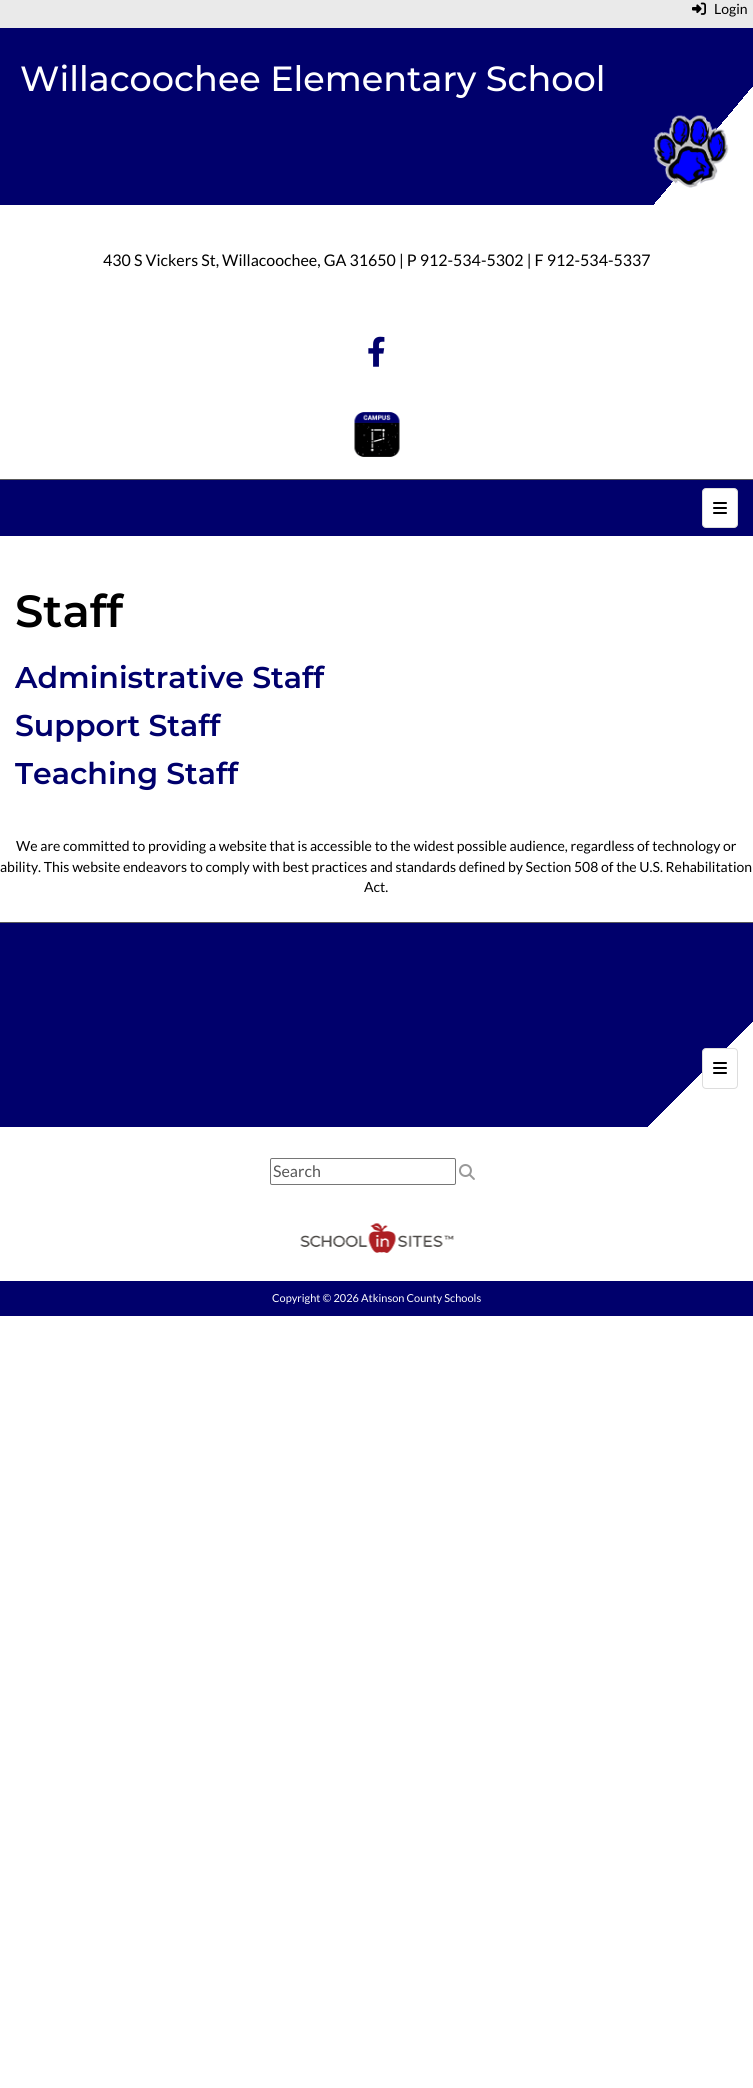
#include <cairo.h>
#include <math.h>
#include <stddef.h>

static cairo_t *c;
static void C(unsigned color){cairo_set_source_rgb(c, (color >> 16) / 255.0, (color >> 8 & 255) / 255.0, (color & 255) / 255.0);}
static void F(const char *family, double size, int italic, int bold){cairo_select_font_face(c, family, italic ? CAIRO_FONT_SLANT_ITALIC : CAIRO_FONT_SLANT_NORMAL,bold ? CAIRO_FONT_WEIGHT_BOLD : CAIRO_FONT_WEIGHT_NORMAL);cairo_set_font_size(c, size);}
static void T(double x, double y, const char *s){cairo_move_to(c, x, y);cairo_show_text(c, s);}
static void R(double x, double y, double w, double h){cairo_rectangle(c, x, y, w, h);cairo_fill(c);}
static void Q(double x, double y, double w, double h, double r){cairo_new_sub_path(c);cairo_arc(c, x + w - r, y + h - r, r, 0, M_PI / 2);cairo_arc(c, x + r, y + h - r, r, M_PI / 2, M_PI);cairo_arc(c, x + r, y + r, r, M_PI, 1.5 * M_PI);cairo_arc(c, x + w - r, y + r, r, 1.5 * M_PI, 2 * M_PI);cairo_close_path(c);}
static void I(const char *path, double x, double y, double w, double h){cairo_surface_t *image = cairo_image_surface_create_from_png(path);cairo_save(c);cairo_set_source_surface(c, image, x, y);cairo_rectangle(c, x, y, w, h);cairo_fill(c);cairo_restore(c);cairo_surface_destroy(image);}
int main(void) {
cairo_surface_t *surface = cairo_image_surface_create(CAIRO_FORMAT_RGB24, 753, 2088);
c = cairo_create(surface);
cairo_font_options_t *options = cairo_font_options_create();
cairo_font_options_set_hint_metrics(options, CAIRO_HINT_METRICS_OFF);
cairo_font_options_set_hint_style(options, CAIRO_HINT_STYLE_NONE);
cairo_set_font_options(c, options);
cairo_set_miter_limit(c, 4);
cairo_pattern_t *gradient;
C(0xffffff);
cairo_paint(c);
C(0xeaeaea);
R(0,0,753,28);
I("1.png",692,2,14,13);
F("Lato",14,0,0);
C(0x000000);
T(714,14,"Login");
gradient = cairo_pattern_create_linear(641,338,112,-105);
cairo_pattern_add_color_stop_rgba(gradient,.11,1,1,1,1);
cairo_pattern_add_color_stop_rgba(gradient,.11,0,0,0.424,1);
cairo_set_source(c,gradient);
cairo_pattern_destroy(gradient);
R(0,28,753,177);
F("Montserrat Medium",35,0,0);
C(0xffffff);
T(20,91,"Willacoochee Elementary School");
I("2.png",653,115,76,73);
F("Lato",16,0,0);
C(0x000000);
T(103,266,"430 S Vickers St, Willacoochee, GA 31650 | P 912-534-5302 | F 912-534-5337");
I("3.png",368,336,17,31);
I("4.png",354,412,46,45);
C(0x595959);
R(0,479,753,1);
C(0x00006c);
R(0,480,753,56);
C(0xffffff);
Q(702.5,488.5,35,39,3.5);
cairo_fill_preserve(c);
C(0xdddddd);
cairo_set_line_width(c,1);
cairo_stroke(c);
I("5.png",713,502,14,12);
F("Montserrat SemiBold",45,0,0);
C(0x000000);
T(15,627,"Staff");
F("Montserrat SemiBold",30,0,0);
C(0x00006c);
T(15,688,"Administrative Staff");
T(15,736,"Support Staff");
T(15,784,"Teaching Staff");
R(0,1281,753,35);
F("Lato",14,0,0);
C(0x000000);
T(16,851,"We are committed to providing a website that is accessible to the widest possible audience, regardless of technology or");
T(0,872,"ability. This website endeavors to comply with best practices and standards defined by Section 508 of the U.S. Rehabilitation");
T(364,892,"Act.");
C(0x595959);
R(0,922,753,1);
gradient = cairo_pattern_create_linear(616,1264,137,786);
cairo_pattern_add_color_stop_rgba(gradient,.11,1,1,1,1);
cairo_pattern_add_color_stop_rgba(gradient,.11,0,0,0.424,1);
cairo_set_source(c,gradient);
cairo_pattern_destroy(gradient);
R(0,923,753,204);
C(0xffffff);
Q(702.5,1048.5,35,40,3.5);
cairo_fill_preserve(c);
C(0xdddddd);
cairo_stroke(c);
I("5.png",713,1062,14,12);
Q(270.5,1158.5,185,26,1.5);
C(0x767676);
cairo_stroke(c);
F("Lato",16,0,0);
C(0x575757);
T(273,1177,"Search");
I("6.png",459,1164,16,16);
I("7.png",300,1223,154,30);
F("Lato",11,0,0);
C(0xffffff);
T(272,1302,"Copyright © 2026 Atkinson County Schools");
cairo_surface_write_to_png(surface, "o.png");
cairo_font_options_destroy(options);
cairo_destroy(c);
cairo_surface_destroy(surface);
return 0;
}
